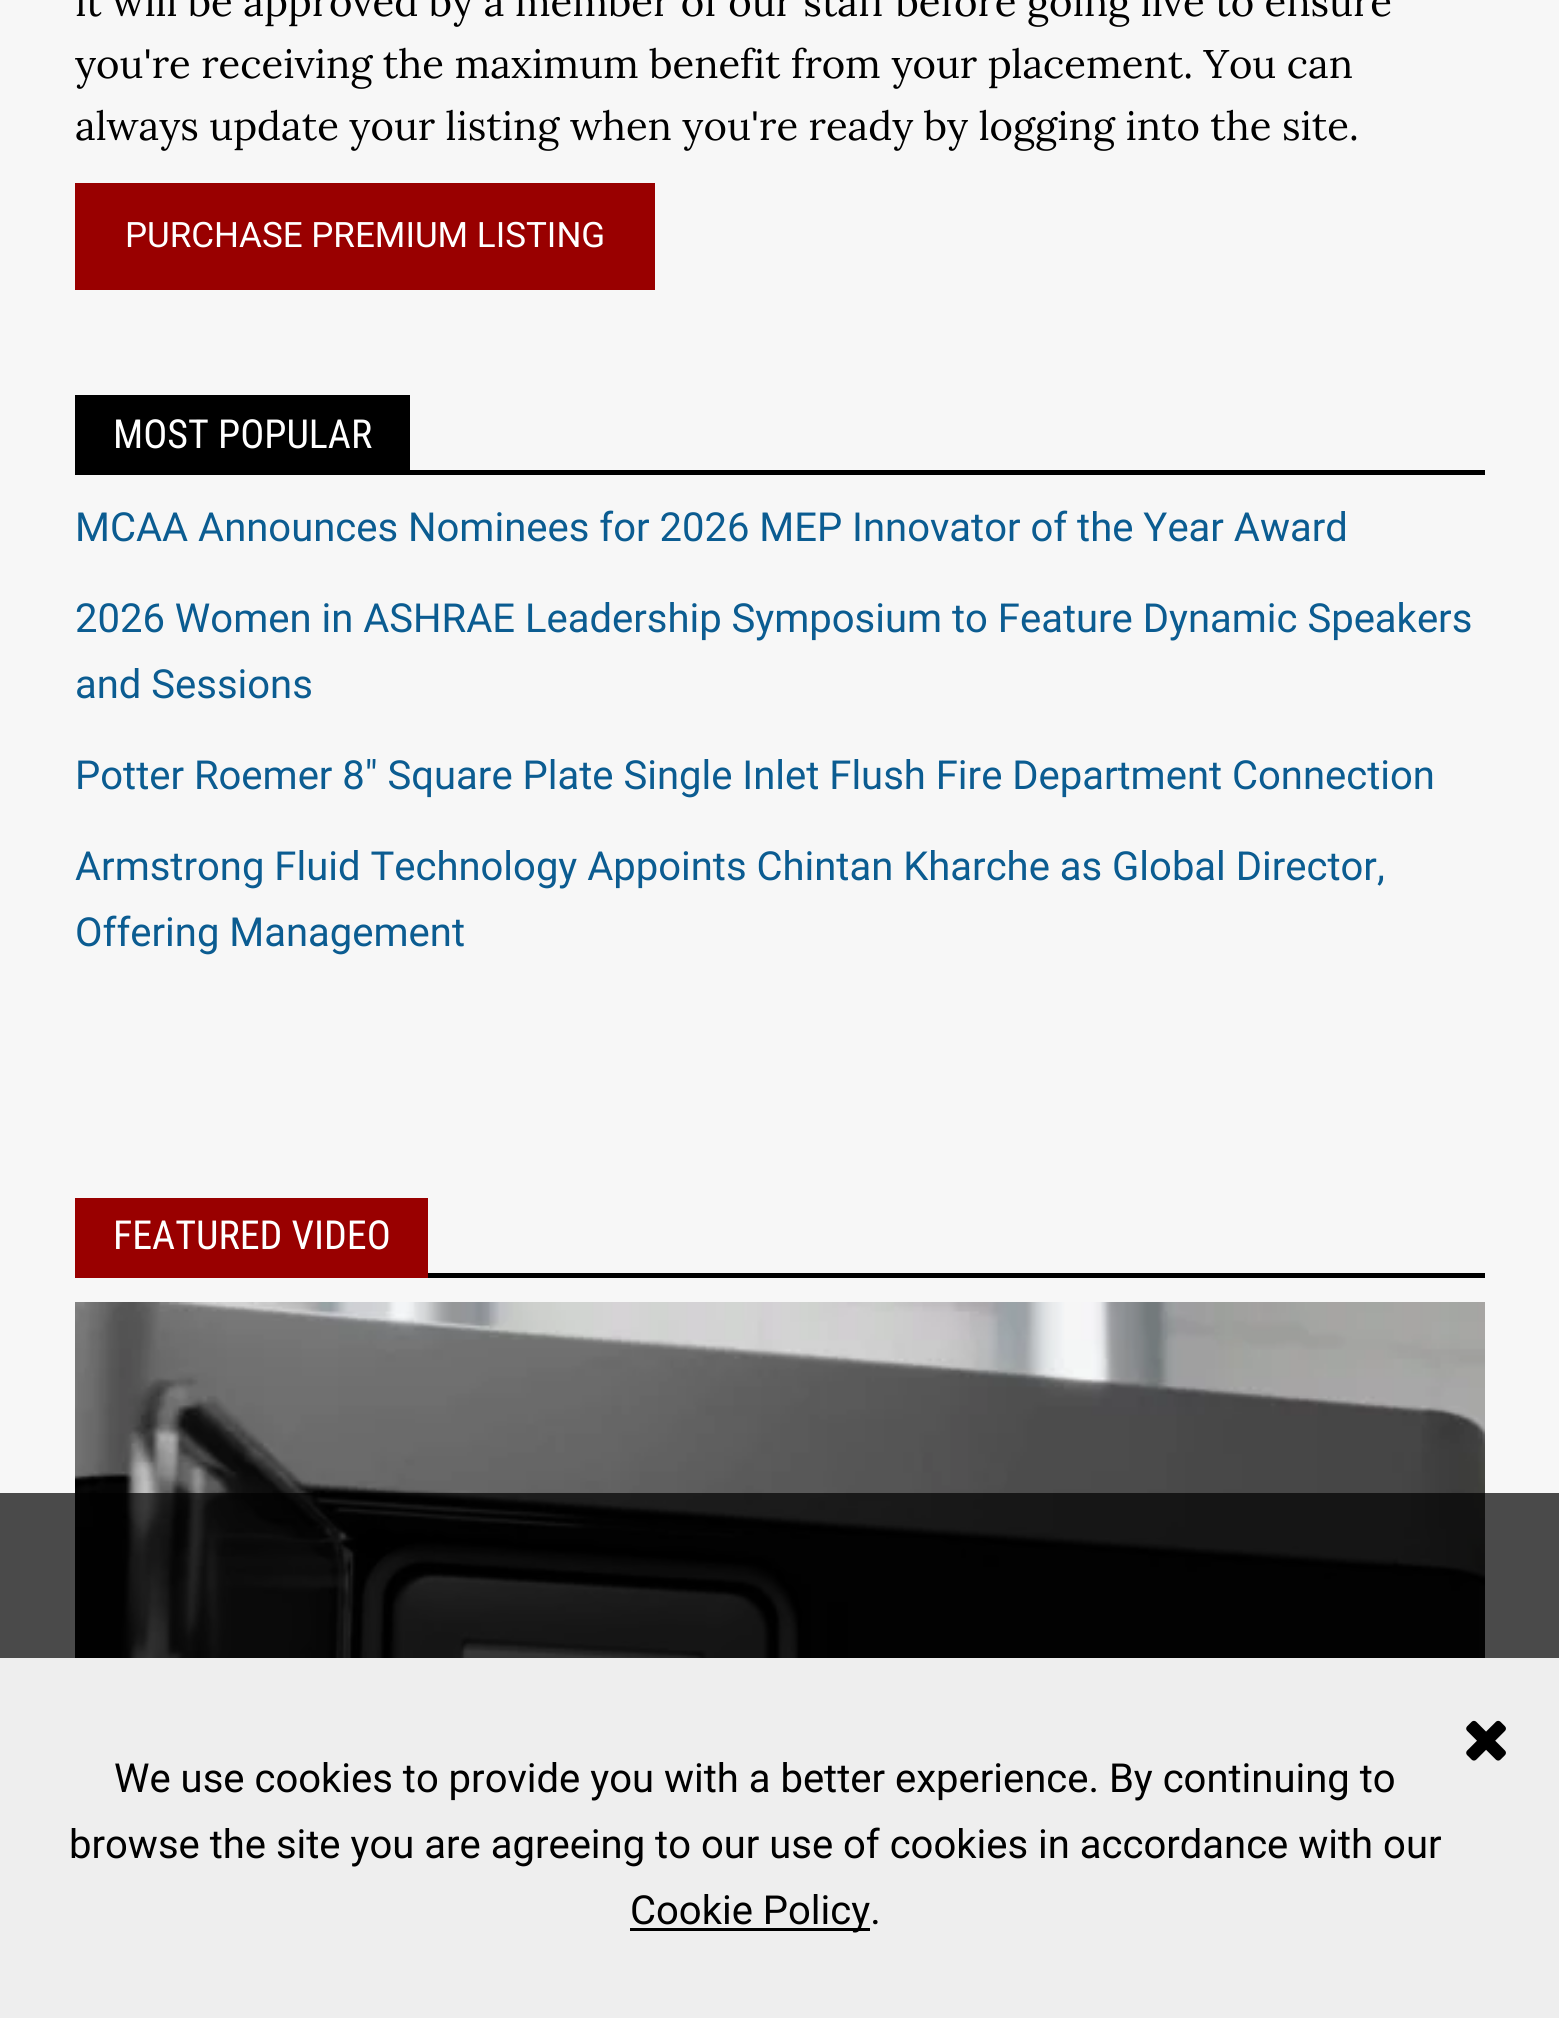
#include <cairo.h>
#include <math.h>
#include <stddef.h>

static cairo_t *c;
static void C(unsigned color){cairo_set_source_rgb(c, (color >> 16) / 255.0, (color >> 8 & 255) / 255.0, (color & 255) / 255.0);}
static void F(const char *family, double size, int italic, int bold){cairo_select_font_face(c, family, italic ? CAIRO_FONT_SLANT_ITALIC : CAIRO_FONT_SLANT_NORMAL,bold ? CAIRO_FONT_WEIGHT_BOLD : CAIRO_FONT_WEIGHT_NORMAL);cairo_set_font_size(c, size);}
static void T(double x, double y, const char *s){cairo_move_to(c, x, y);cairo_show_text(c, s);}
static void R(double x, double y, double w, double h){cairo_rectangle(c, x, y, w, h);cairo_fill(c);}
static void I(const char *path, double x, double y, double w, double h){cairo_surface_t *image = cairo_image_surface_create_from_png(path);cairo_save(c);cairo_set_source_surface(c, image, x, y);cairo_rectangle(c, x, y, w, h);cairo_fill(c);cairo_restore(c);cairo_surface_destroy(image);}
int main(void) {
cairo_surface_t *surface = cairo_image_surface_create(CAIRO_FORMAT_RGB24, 1559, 2018);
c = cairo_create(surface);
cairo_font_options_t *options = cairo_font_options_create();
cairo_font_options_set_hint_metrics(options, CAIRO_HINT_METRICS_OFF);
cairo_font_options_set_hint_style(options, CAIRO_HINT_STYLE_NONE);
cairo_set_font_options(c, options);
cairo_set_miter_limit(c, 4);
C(0xf7f7f7);
cairo_paint(c);
F("Lora",40,0,0);
C(0x000000);
T(75,16,"it will be approved by a member of our staff before going live to ensure");
T(75,78,"you're receiving the maximum benefit from your placement. You can");
T(75,140,"always update your listing when you're ready by logging into the site.");
C(0x990000);
R(75,183,580,107);
F("Roboto",35,0,0);
C(0xffffff);
T(125,247,"PURCHASE PREMIUM LISTING");
C(0x000000);
R(75,395,335,80);
F("Roboto Condensed",40,0,0);
C(0xffffff);
T(113,448,"MOST POPULAR");
C(0x000000);
R(410,470,1075,5);
F("Roboto",40,0,0);
C(0x0b5c91);
T(75,541,"MCAA Announces Nominees for 2026 MEP Innovator of the Year Award");
T(75,632,"2026 Women in ASHRAE Leadership Symposium to Feature Dynamic Speakers");
T(75,698,"and Sessions");
T(75,789,"Potter Roemer 8\" Square Plate Single Inlet Flush Fire Department Connection");
T(75,880,"Armstrong Fluid Technology Appoints Chintan Kharche as Global Director,");
T(75,946,"Offering Management");
C(0x000000);
R(428,1273,1057,5);
C(0x990000);
R(75,1198,353,80);
F("Roboto Condensed",40,0,0);
C(0xffffff);
T(113,1249,"FEATURED VIDEO");
I("1.png",75,1302,1410,356);
cairo_set_source_rgba(c,0,0,0,0.7);
R(0,1493,1559,165);
C(0xeeeeee);
R(0,1658,1559,360);
I("2.png",1466,1720,40,41);
F("Roboto",40,0,0);
C(0x000000);
T(114,1792,"We use cookies to provide you with a better experience. By continuing to");
T(69,1858,"browse the site you are agreeing to our use of cookies in accordance with our");
R(630,1928,240,3);
T(630,1924,"Cookie Policy.");
cairo_surface_write_to_png(surface, "o.png");
cairo_font_options_destroy(options);
cairo_destroy(c);
cairo_surface_destroy(surface);
return 0;
}
